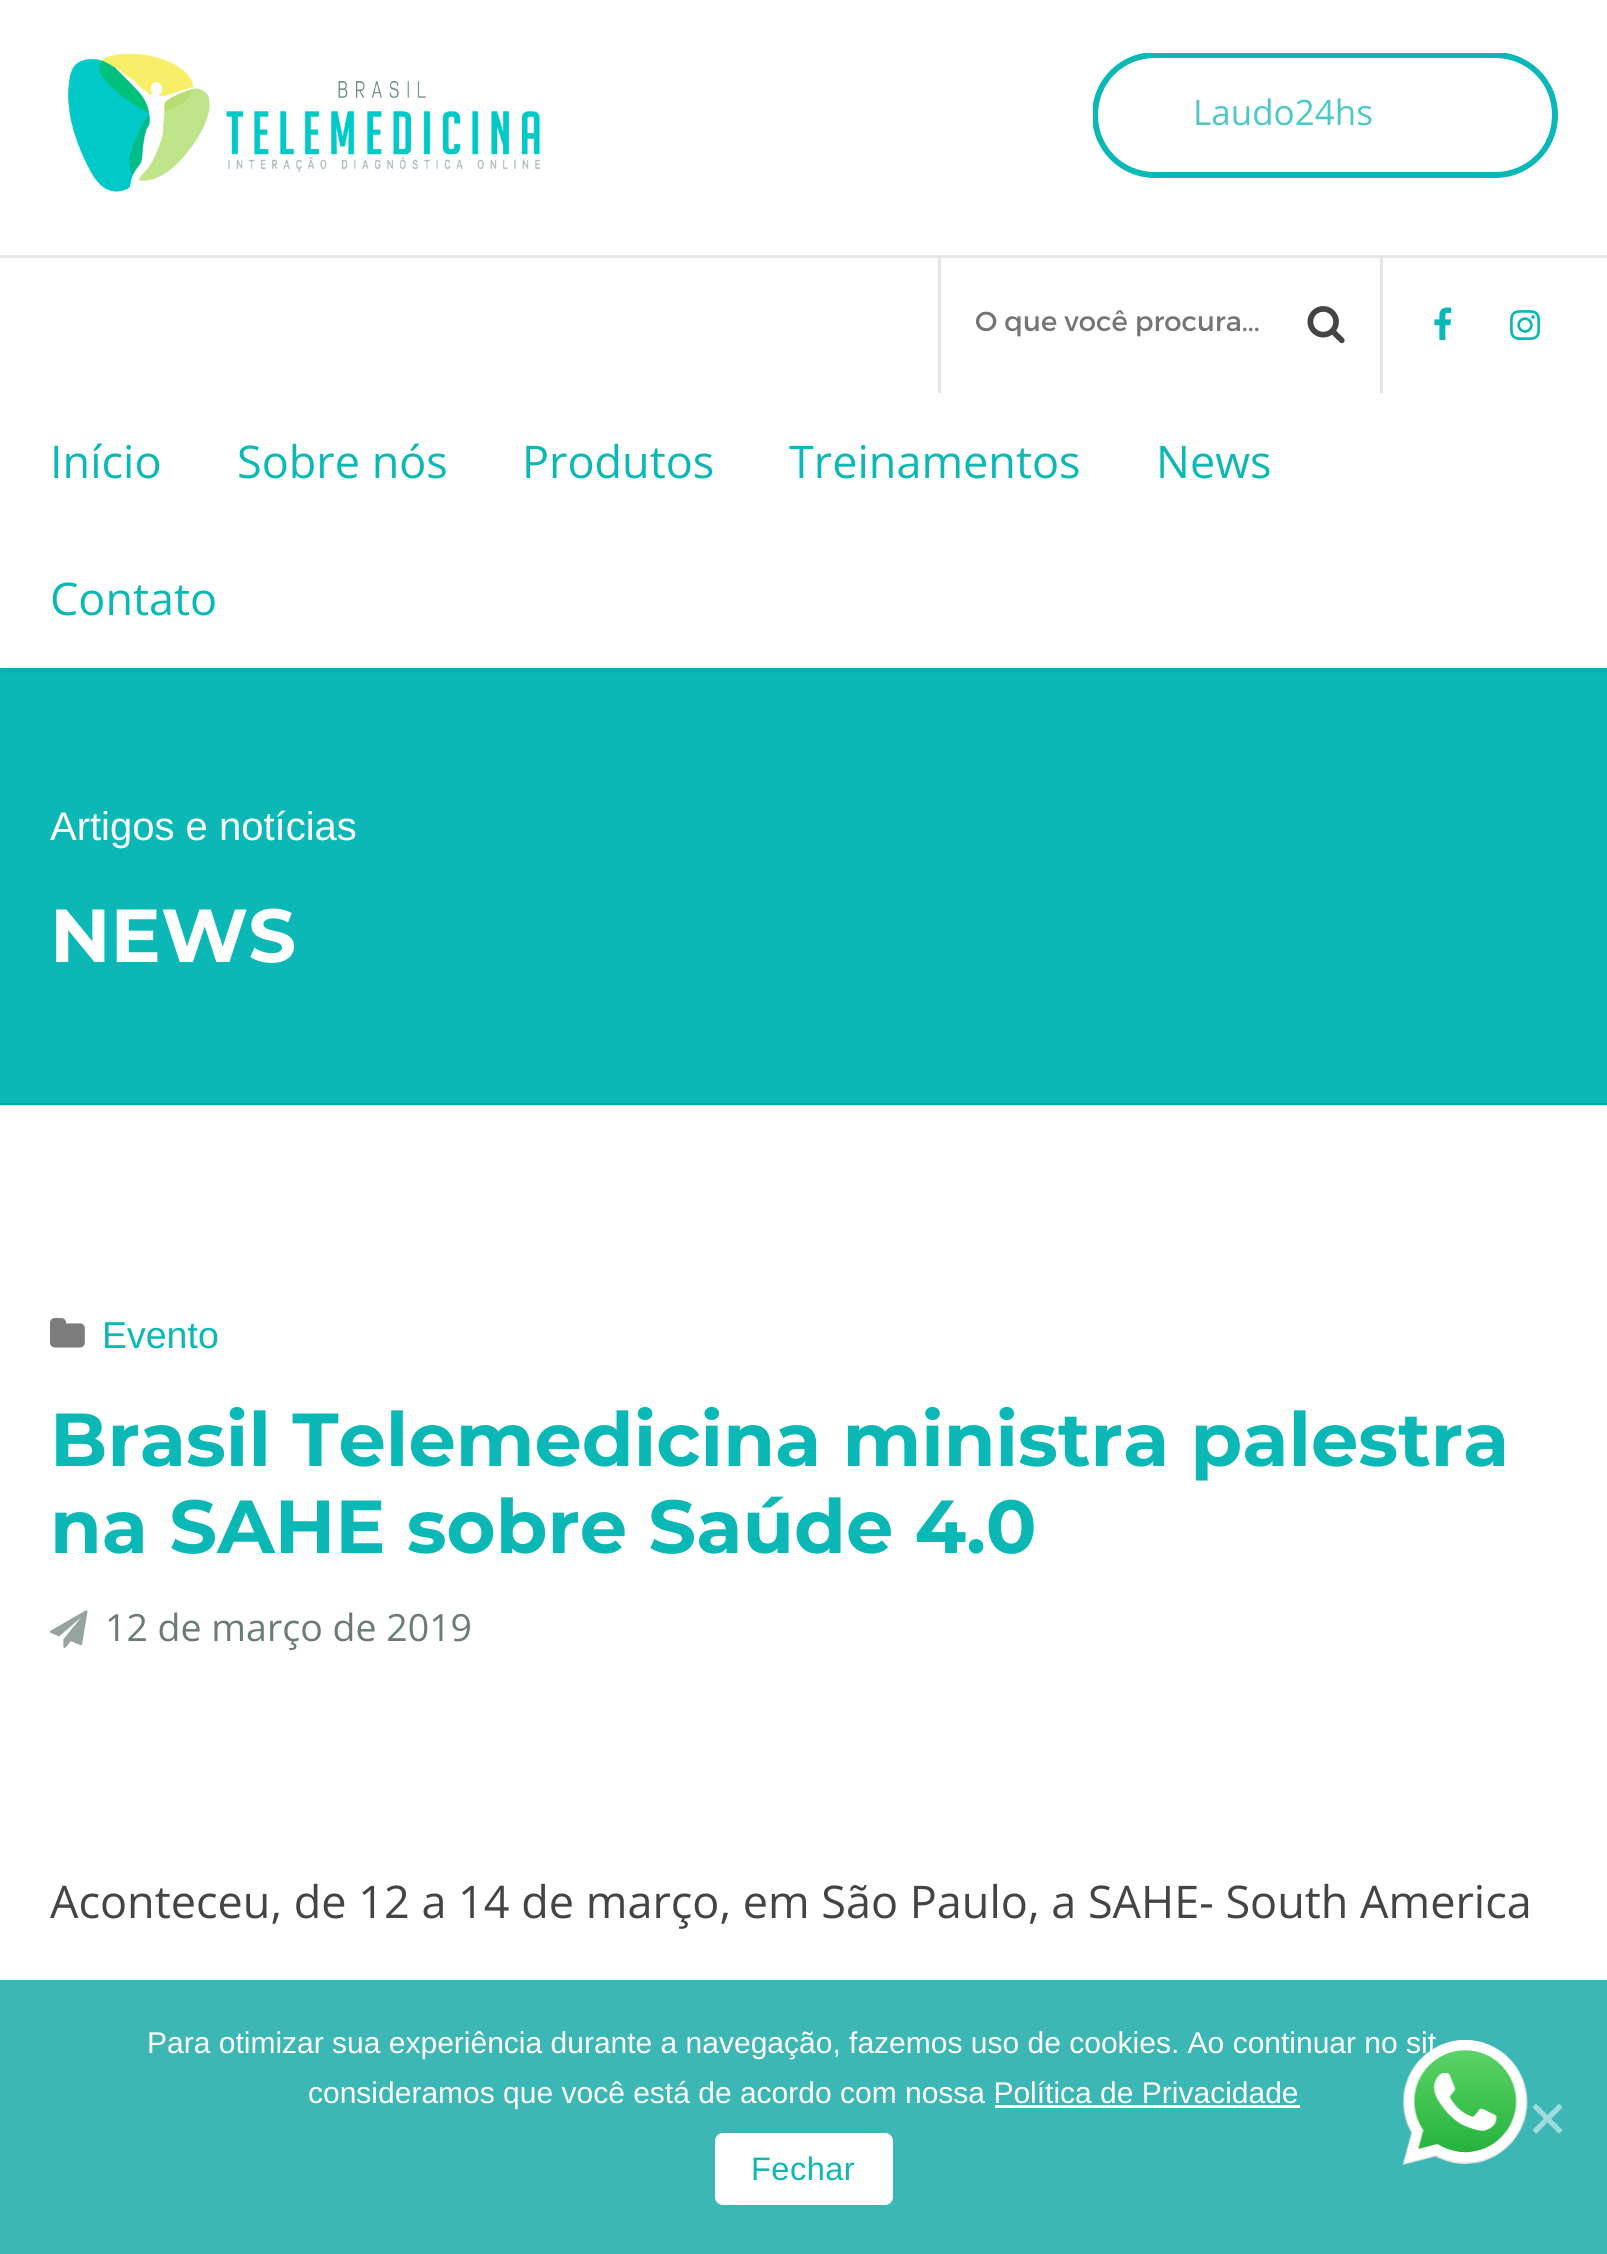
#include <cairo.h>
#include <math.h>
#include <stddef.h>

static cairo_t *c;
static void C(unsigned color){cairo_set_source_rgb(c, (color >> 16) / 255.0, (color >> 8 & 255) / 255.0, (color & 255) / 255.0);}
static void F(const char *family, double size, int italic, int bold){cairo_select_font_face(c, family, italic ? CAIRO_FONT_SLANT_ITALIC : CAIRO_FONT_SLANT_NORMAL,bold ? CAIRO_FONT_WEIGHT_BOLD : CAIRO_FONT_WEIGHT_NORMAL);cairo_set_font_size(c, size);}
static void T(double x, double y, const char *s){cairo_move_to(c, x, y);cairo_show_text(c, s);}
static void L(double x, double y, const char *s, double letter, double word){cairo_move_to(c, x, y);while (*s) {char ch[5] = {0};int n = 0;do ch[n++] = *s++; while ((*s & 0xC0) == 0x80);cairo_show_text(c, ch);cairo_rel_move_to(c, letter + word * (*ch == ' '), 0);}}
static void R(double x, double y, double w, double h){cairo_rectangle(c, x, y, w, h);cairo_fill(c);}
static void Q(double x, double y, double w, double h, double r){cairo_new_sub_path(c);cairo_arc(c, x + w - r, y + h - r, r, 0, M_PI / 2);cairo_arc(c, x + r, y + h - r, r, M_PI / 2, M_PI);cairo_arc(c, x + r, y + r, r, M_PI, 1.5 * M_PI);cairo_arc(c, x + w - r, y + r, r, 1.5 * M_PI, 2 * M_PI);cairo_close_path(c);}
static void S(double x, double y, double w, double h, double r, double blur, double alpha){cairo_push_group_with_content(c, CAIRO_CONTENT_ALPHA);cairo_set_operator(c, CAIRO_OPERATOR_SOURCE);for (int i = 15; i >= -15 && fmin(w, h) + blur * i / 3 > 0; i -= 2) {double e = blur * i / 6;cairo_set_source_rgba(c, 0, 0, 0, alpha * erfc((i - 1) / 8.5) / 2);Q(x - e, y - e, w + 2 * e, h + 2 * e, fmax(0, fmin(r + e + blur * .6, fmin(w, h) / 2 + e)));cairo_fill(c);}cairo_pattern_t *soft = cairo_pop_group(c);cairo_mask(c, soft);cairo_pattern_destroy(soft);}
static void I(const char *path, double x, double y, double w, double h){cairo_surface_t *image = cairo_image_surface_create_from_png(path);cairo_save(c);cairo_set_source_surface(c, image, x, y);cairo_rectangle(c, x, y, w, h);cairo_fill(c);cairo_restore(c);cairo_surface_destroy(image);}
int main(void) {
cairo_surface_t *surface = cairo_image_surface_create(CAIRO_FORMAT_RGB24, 1607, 2254);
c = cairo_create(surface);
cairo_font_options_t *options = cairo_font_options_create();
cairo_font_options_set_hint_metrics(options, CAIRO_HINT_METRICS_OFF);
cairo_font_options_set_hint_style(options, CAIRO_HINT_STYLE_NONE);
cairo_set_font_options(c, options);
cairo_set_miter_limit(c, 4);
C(0xffffff);
cairo_paint(c);
C(0xe6e6e6);
R(0,1105,1607,1);
C(0x0cb8b6);
R(0,668,1607,435);
cairo_save(c);
cairo_set_fill_rule(c,CAIRO_FILL_RULE_EVEN_ODD);
cairo_new_path(c);
cairo_move_to(c,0,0);
cairo_line_to(c,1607,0);
cairo_line_to(c,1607,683);
cairo_line_to(c,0,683);
cairo_close_path(c);
cairo_move_to(c,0,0);
cairo_line_to(c,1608,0);
cairo_line_to(c,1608,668);
cairo_line_to(c,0,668);
cairo_close_path(c);
cairo_clip(c);
C(0x000000);
S(0,3,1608,667,0,4,.1);
cairo_restore(c);
I("1.png",67,53,474,139);
cairo_save(c);
cairo_rectangle(c,1093,53,465,125);
cairo_clip(c);
cairo_set_fill_rule(c,CAIRO_FILL_RULE_EVEN_ODD);
cairo_new_path(c);
cairo_move_to(c,1155,52);
cairo_line_to(c,1468,52);
cairo_line_to(c,1468,178);
cairo_line_to(c,1155,178);
cairo_curve_to(c,1120,178,1092,150,1092,115);
cairo_curve_to(c,1092,80,1120,52,1155,52);
cairo_close_path(c);
cairo_move_to(c,1155,58);
cairo_line_to(c,1468,58);
cairo_line_to(c,1468,172);
cairo_line_to(c,1155,172);
cairo_curve_to(c,1123,172,1098,147,1098,115);
cairo_curve_to(c,1098,83,1123,58,1155,58);
cairo_close_path(c);
cairo_fill(c);
cairo_restore(c);
F("Open Sans",35,0,0);
C(0x4dc8c6);
T(1193,125,"Laudo24hs");
cairo_save(c);
cairo_rectangle(c,1093,53,465,125);
cairo_clip(c);
C(0x0cb8b6);
cairo_set_fill_rule(c,CAIRO_FILL_RULE_EVEN_ODD);
cairo_new_path(c);
cairo_move_to(c,1468,52);
cairo_line_to(c,1495,52);
cairo_curve_to(c,1530,52,1558,80,1558,115);
cairo_curve_to(c,1558,150,1530,178,1495,178);
cairo_line_to(c,1468,178);
cairo_close_path(c);
cairo_move_to(c,1468,58);
cairo_line_to(c,1495,58);
cairo_curve_to(c,1527,58,1552,83,1552,115);
cairo_curve_to(c,1552,147,1527,172,1495,172);
cairo_line_to(c,1468,172);
cairo_close_path(c);
cairo_fill(c);
cairo_restore(c);
C(0xe6e6e6);
R(0,255,1607,3);
R(1380,258,3,135);
R(938,258,3,135);
F("Montserrat",27.5,0,0);
C(0x757575);
T(975,331,"O que você procura...");
I("2.png",1307,306,38,38);
I("3.png",1434,307,18,34);
I("4.png",1510,310,31,30);
F("Open Sans",45,0,0);
C(0x0cb8b6);
T(50,478,"Início");
T(237,478,"Sobre nós");
T(522,478,"Produtos");
T(789,478,"Treinamentos");
T(1156,478,"News");
T(50,615,"Contato");
C(0x0ba6a4);
R(0,1103,1607,2);
F("Liberation Sans",40,0,0);
C(0xffffff);
T(50,840,"Artigos e notícias");
F("Montserrat",75,0,1);
T(50,962,"NEWS");
I("5.png",50,1318,35,30);
F("Liberation Sans",37.5,0,0);
C(0x0cb8b6);
T(102,1348,"Evento");
F("Montserrat",75,0,1);
T(50,1466,"Brasil Telemedicina ministra palestra");
T(50,1553,"na SAHE sobre Saúde 4.0");
I("6.png",50,1610,38,38);
F("Open Sans",37.5,0,0);
C(0x697c76);
T(105,1641,"12 de março de 2019");
F("Open Sans",45,0,0);
C(0x444444);
T(50,1918,"Aconteceu, de 12 a 14 de março, em São Paulo, a SAHE- South America");
C(0x3cb7b5);
R(0,1980,1607,274);
F("Liberation Sans",30,0,0);
C(0xffffff);
T(147,2053,"Para otimizar sua experiência durante a navegação, fazemos uso de cookies. Ao continuar no sit");
T(308,2103,"consideramos que você está de acordo com nossa Política de Privacidade");
R(995,2105,305,3);
C(0x9edbda);
cairo_new_path(c);
cairo_move_to(c,1559,2103.5);
cairo_line_to(c,1562.5,2107.5);
cairo_line_to(c,1536,2134);
cairo_line_to(c,1532.5,2130);
cairo_close_path(c);
cairo_fill(c);
cairo_new_path(c);
cairo_move_to(c,1532.5,2107.5);
cairo_line_to(c,1536,2103.5);
cairo_line_to(c,1562.5,2130);
cairo_line_to(c,1559,2134);
cairo_close_path(c);
cairo_fill(c);
C(0xffffff);
Q(715,2133,178,72,8);
cairo_fill(c);
F("Liberation Sans",32.5,0,0);
C(0x0cb8b6);
L(751,2180,"Fechar",.5,0);
I("7.png",1402,2040,126,125);
cairo_surface_write_to_png(surface, "o.png");
cairo_font_options_destroy(options);
cairo_destroy(c);
cairo_surface_destroy(surface);
return 0;
}
